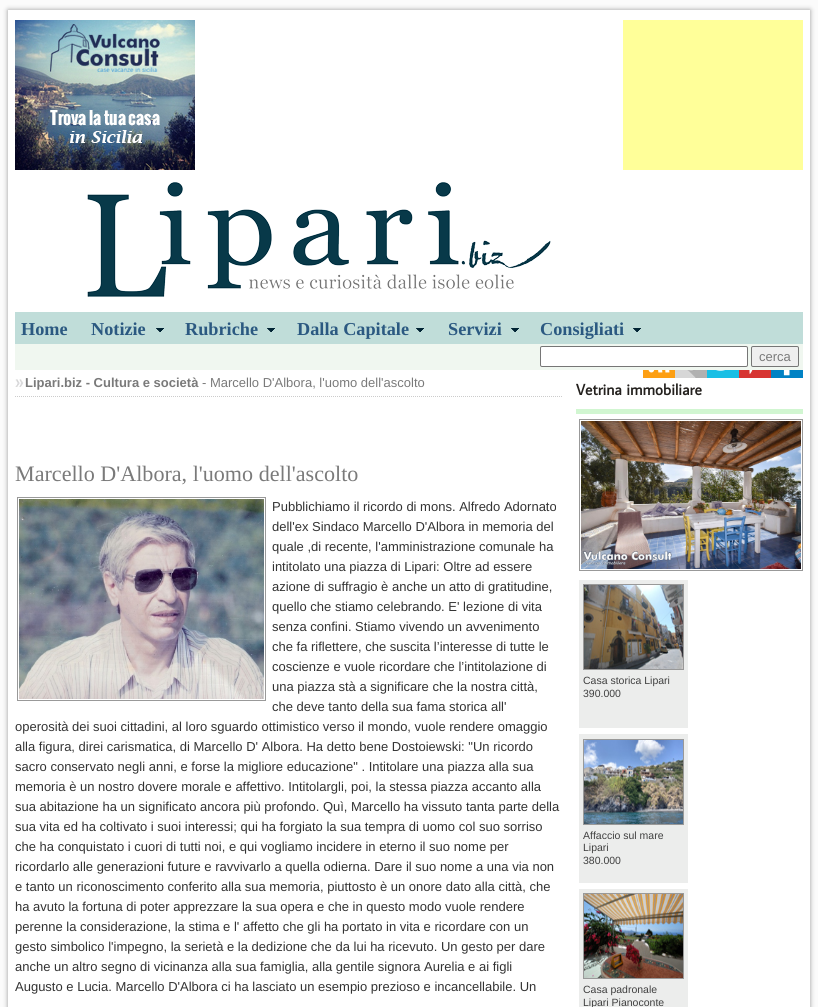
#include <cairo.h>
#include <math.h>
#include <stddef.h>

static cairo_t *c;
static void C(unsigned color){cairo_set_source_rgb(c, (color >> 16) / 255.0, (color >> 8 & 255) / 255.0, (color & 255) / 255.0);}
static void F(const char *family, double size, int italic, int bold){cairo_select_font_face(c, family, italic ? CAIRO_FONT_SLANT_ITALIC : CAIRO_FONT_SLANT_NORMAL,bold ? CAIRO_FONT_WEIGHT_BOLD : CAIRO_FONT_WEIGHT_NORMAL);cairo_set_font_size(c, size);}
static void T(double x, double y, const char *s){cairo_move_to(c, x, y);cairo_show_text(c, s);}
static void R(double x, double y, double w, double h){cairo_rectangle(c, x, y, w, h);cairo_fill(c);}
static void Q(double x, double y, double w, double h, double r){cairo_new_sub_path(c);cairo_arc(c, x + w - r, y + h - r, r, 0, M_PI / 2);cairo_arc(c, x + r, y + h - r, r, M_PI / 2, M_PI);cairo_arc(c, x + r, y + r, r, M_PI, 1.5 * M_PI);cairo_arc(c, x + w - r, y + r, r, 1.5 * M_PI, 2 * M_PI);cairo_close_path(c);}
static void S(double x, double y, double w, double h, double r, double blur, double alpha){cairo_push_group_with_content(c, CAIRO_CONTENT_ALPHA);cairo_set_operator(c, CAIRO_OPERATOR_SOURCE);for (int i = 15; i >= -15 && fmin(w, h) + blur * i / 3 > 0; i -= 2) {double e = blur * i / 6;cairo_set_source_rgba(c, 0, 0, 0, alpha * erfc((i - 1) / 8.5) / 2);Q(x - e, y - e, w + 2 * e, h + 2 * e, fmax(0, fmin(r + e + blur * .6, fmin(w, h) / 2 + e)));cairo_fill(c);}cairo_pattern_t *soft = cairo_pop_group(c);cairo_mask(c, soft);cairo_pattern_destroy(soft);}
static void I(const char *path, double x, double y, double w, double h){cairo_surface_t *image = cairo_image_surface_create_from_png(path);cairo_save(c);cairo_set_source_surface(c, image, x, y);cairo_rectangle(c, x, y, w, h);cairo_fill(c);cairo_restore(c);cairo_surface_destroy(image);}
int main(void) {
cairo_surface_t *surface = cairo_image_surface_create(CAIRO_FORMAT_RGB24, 818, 1007);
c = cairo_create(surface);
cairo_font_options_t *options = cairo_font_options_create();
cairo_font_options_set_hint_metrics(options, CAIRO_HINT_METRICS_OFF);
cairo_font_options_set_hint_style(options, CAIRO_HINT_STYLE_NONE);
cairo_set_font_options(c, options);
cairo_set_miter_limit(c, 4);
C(0xfbfbfb);
cairo_paint(c);
C(0x999999);
S(8,10,802,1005,0,2.5,1);
C(0xffffff);
R(8,10,802,997);
I("1.png",15,20,180,150);
C(0xffff99);
R(623,20,180,150);
I("2.png",87,182,464,115);
C(0xc0ddd9);
R(15,312,788,32);
F("Liberation Serif",18.25,0,1);
C(0x2b5981);
T(21,335,"Home");
I("3.png",156,328,8,4);
T(91,335,"Notizie");
I("3.png",267,328,8,4);
T(185,335,"Rubriche");
I("3.png",416,328,8,4);
T(297,335,"Dalla Capitale");
I("3.png",511,328,8,4);
T(448,335,"Servizi");
I("3.png",633,328,8,4);
T(540,335,"Consigliati");
I("4.png",643,370,32,8);
I("5.png",675,370,32,8);
I("6.png",707,370,32,8);
I("7.png",739,370,32,8);
I("8.png",771,370,32,8);
C(0xf0f7f0);
R(15,344,788,26);
C(0xffffff);
Q(540.5,346.5,207,20,1.5);
cairo_fill_preserve(c);
C(0x767676);
cairo_set_line_width(c,1);
cairo_stroke(c);
C(0xefefef);
Q(751.5,346.5,47,20,1.5);
cairo_fill_preserve(c);
C(0x767676);
cairo_stroke(c);
F("Liberation Sans",13,0,0);
C(0x7a7a7a);
T(759,361,"cerca");
I("9.png",15,379,9,8);
cairo_new_path(c);
cairo_move_to(c,15,396.5);
cairo_line_to(c,563,396.5);
C(0xcccccc);
cairo_set_dash(c,(double[]){1,1},2,0);
cairo_stroke(c);
F("Liberation Sans",13,0,1);
C(0x7a7a7a);
T(25,387,"Lipari.biz - Cultura e società");
F("Liberation Sans",13,0,0);
T(202,387,"- Marcello D'Albora, l'uomo dell'ascolto");
F("Liberation Serif",22.1,0,0);
T(15,481,"Marcello D'Albora, l'uomo dell'ascolto");
cairo_rectangle(c,17.5,497.5,248,203);
C(0x999999);
cairo_set_dash(c,NULL,0,0);
cairo_stroke(c);
I("10.png",19,499,245,200);
F("Liberation Sans",13,0,0);
C(0x333333);
T(272,511,"Pubblichiamo il ricordo di mons. Alfredo Adornato");
T(272,531,"dell'ex Sindaco Marcello D'Albora in memoria del");
T(272,551,"quale ,di recente, l'amministrazione comunale ha");
T(272,571,"intitolato una piazza di Lipari: Oltre ad essere");
T(272,591,"azione di suffragio è anche un atto di gratitudine,");
T(272,611,"quello che stiamo celebrando. E' lezione di vita");
T(272,631,"senza confini. Stiamo vivendo un avvenimento");
T(272,651,"che fa riflettere, che suscita l’interesse di tutte le");
T(272,671,"coscienze e vuole ricordare che l’intitolazione di");
T(272,691,"una piazza stà a significare che la nostra città,");
T(272,711,"che deve tanto della sua fama storica all'");
T(15,731,"operosità dei suoi cittadini, al loro sguardo ottimistico verso il mondo, vuole rendere omaggio");
T(15,751,"alla figura, direi carismatica, di Marcello D' Albora. Ha detto bene Dostoiewski: \"Un ricordo");
T(15,771,"sacro conservato negli anni, e forse la migliore educazione\" . Intitolare una piazza alla sua");
T(15,791,"memoria è un nostro dovere morale e affettivo. Intitolargli, poi, la stessa piazza accanto alla");
T(15,811,"sua abitazione ha un significato ancora più profondo. Quì, Marcello ha vissuto tanta parte della");
T(15,831,"sua vita ed ha coltivato i suoi interessi; qui ha forgiato la sua tempra di uomo col suo sorriso");
T(15,851,"che ha conquistato i cuori di tutti noi, e qui vogliamo incidere in eterno il suo nome per");
T(15,871,"ricordarlo alle generazioni future e ravvivarlo a quella odierna. Dare il suo nome a una via non");
T(15,891,"e tanto un riconoscimento conferito alla sua memoria, piuttosto è un onore dato alla città, che");
T(15,911,"ha avuto la fortuna di poter apprezzare la sua opera e che in questo modo vuole rendere");
T(15,931,"perenne la considerazione, la stima e l' affetto che gli ha portato in vita e ricordare con un");
T(15,951,"gesto simbolico l'impegno, la serietà e la dedizione che da lui ha ricevuto. Un gesto per dare");
T(15,971,"anche un altro segno di vicinanza alla sua famiglia, alla gentile signora Aurelia e ai figli");
T(15,991,"Augusto e Lucia. Marcello D'Albora ci ha lasciato un esempio prezioso e incancellabile. Un");
F("Average Sans",15.5,0,1);
C(0x24211e);
T(576,395,"Vetrina immobiliare");
C(0xd1f6d1);
R(576,409,227,5);
cairo_rectangle(c,579.5,419.5,223,151);
C(0x999999);
cairo_stroke(c);
I("11.png",581,421,220,148);
C(0xecedec);
R(579,580,109,148);
cairo_rectangle(c,583.5,584.5,100,85);
C(0x999999);
cairo_stroke(c);
I("12.png",584,585,99,84);
F("Liberation Sans",10.5,0,0);
C(0x404040);
T(583,684,"Casa storica Lipari");
T(583,697,"390.000");
C(0xecedec);
R(579,734,109,149);
cairo_rectangle(c,583.5,739.5,100,85);
C(0x999999);
cairo_stroke(c);
I("13.png",584,740,99,84);
C(0x404040);
T(583,839,"Affaccio sul mare");
T(583,851,"Lipari");
T(583,864,"380.000");
C(0xecedec);
R(579,889,109,118);
cairo_rectangle(c,583.5,893.5,100,85);
C(0x999999);
cairo_stroke(c);
I("14.png",584,894,99,84);
C(0x404040);
T(583,993,"Casa padronale");
T(583,1006,"Lipari Pianoconte");
cairo_surface_write_to_png(surface, "o.png");
cairo_font_options_destroy(options);
cairo_destroy(c);
cairo_surface_destroy(surface);
return 0;
}
